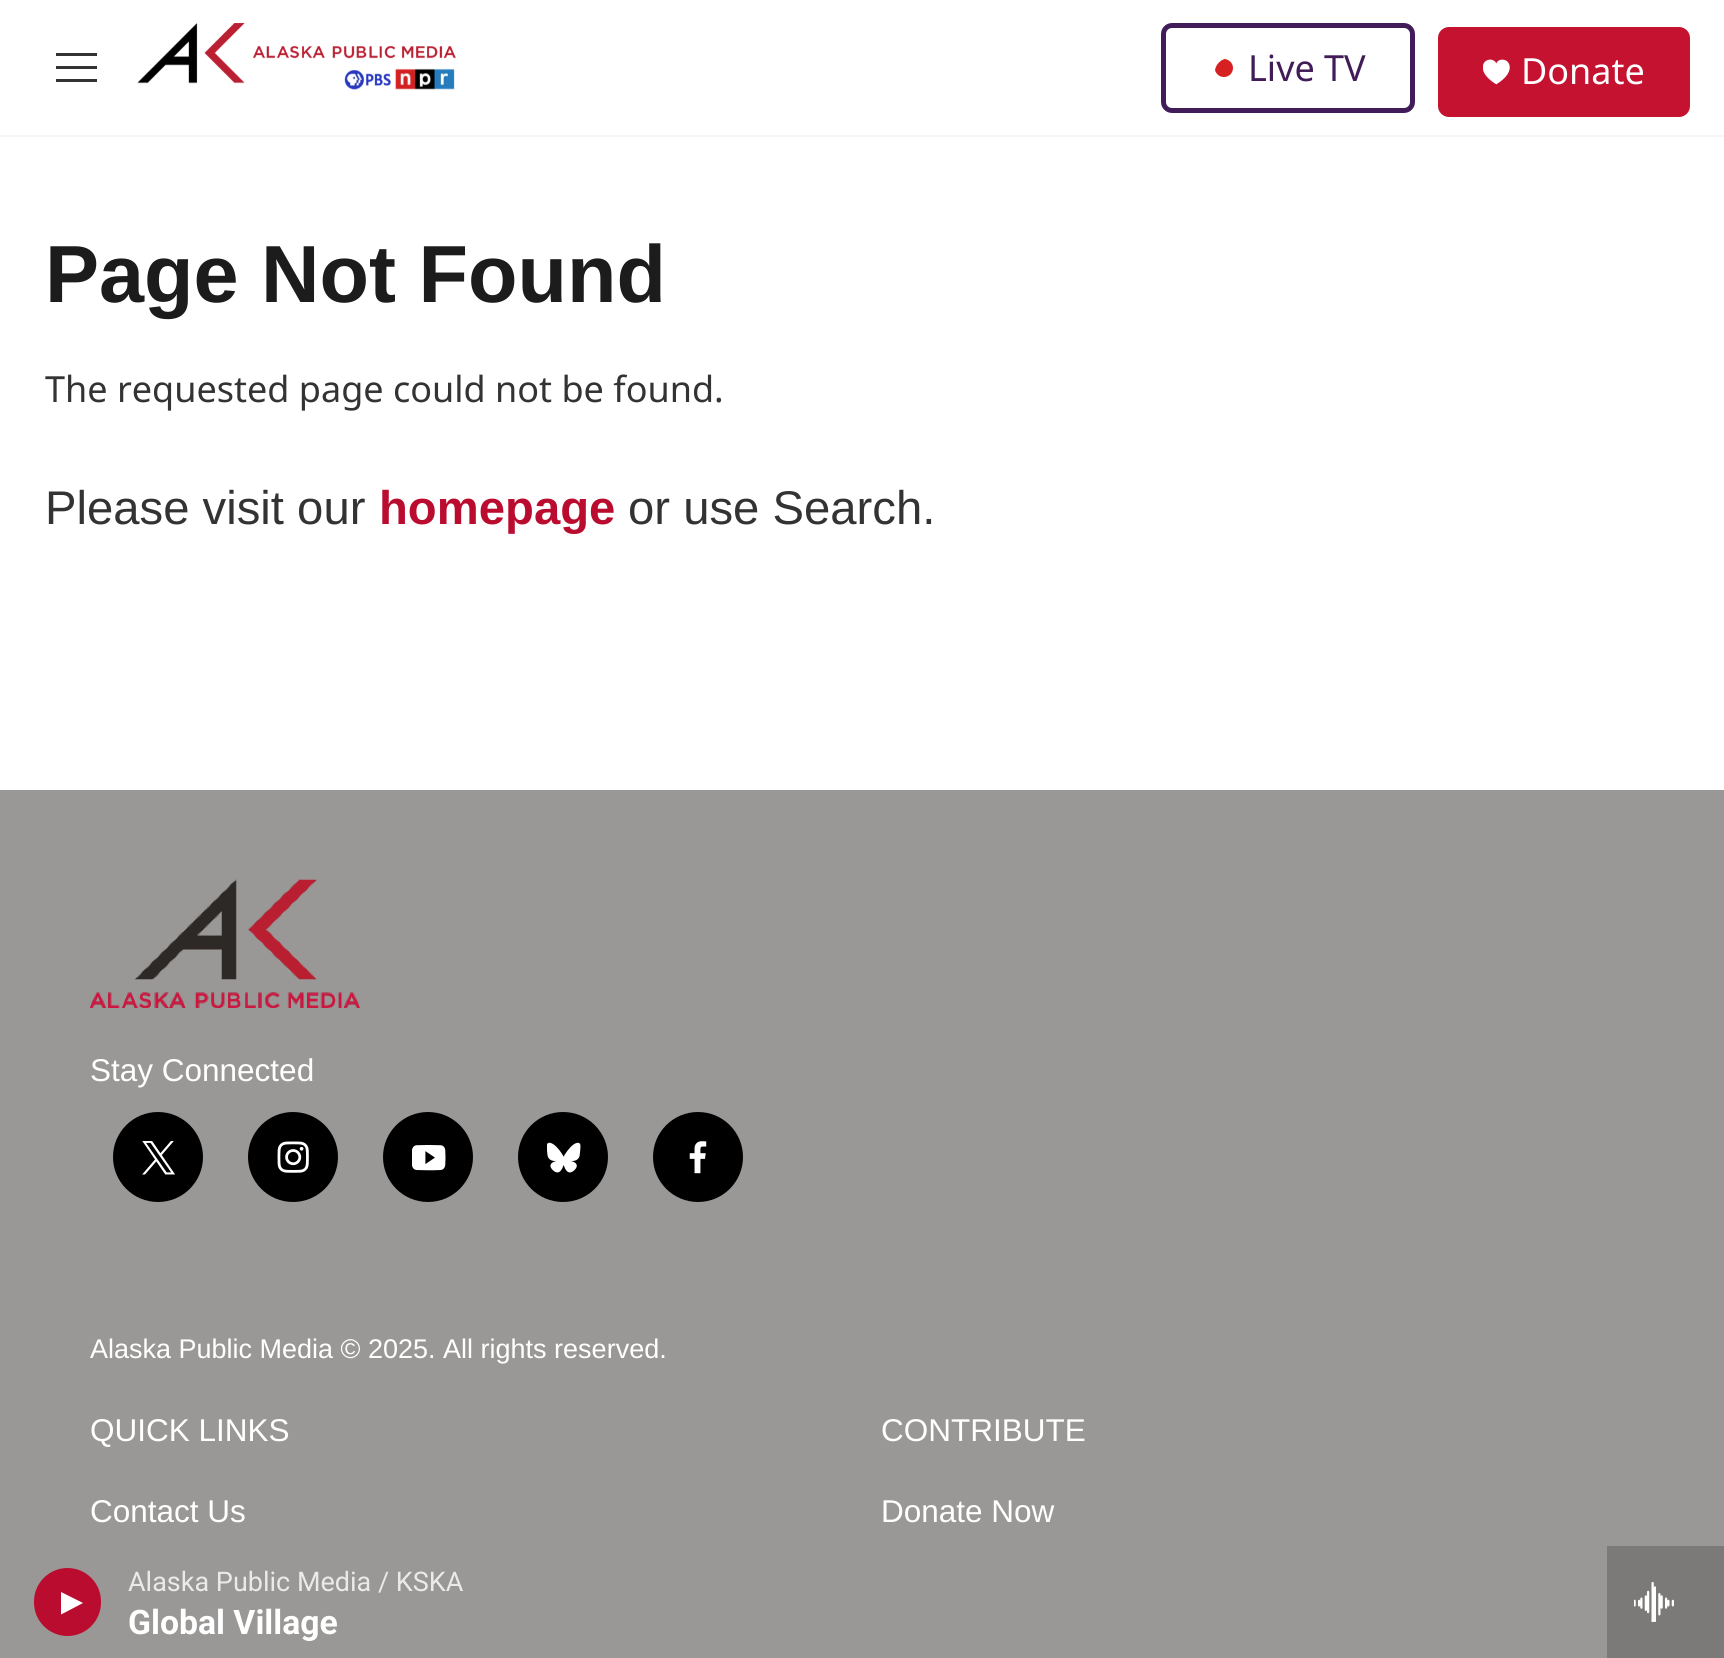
#include <cairo.h>
#include <math.h>
#include <stddef.h>

static cairo_t *c;
static void C(unsigned color){cairo_set_source_rgb(c, (color >> 16) / 255.0, (color >> 8 & 255) / 255.0, (color & 255) / 255.0);}
static void F(const char *family, double size, int italic, int bold){cairo_select_font_face(c, family, italic ? CAIRO_FONT_SLANT_ITALIC : CAIRO_FONT_SLANT_NORMAL,bold ? CAIRO_FONT_WEIGHT_BOLD : CAIRO_FONT_WEIGHT_NORMAL);cairo_set_font_size(c, size);}
static void T(double x, double y, const char *s){cairo_move_to(c, x, y);cairo_show_text(c, s);}
static void R(double x, double y, double w, double h){cairo_rectangle(c, x, y, w, h);cairo_fill(c);}
static void Q(double x, double y, double w, double h, double r){cairo_new_sub_path(c);cairo_arc(c, x + w - r, y + h - r, r, 0, M_PI / 2);cairo_arc(c, x + r, y + h - r, r, M_PI / 2, M_PI);cairo_arc(c, x + r, y + r, r, M_PI, 1.5 * M_PI);cairo_arc(c, x + w - r, y + r, r, 1.5 * M_PI, 2 * M_PI);cairo_close_path(c);}
static void I(const char *path, double x, double y, double w, double h){cairo_surface_t *image = cairo_image_surface_create_from_png(path);cairo_save(c);cairo_set_source_surface(c, image, x, y);cairo_rectangle(c, x, y, w, h);cairo_fill(c);cairo_restore(c);cairo_surface_destroy(image);}
int main(void) {
cairo_surface_t *surface = cairo_image_surface_create(CAIRO_FORMAT_RGB24, 1724, 1658);
c = cairo_create(surface);
cairo_font_options_t *options = cairo_font_options_create();
cairo_font_options_set_hint_metrics(options, CAIRO_HINT_METRICS_OFF);
cairo_font_options_set_hint_style(options, CAIRO_HINT_STYLE_NONE);
cairo_set_font_options(c, options);
cairo_set_miter_limit(c, 4);
C(0xffffff);
cairo_paint(c);
C(0xf5f5f5);
R(0,135,1724,2);
C(0x333333);
cairo_set_fill_rule(c,CAIRO_FILL_RULE_EVEN_ODD);
cairo_new_path(c);
cairo_move_to(c,56,69);
cairo_line_to(c,56,66);
cairo_line_to(c,97,66);
cairo_line_to(c,97,69);
cairo_close_path(c);
cairo_move_to(c,56,56);
cairo_line_to(c,56,53);
cairo_line_to(c,97,53);
cairo_line_to(c,97,56);
cairo_close_path(c);
cairo_move_to(c,56,82);
cairo_line_to(c,56,79);
cairo_line_to(c,97,79);
cairo_line_to(c,97,82);
cairo_close_path(c);
cairo_fill(c);
I("1.png",137,23,319,67);
Q(1163.5,25.5,249,85,8.5);
C(0x411c58);
cairo_set_line_width(c,5);
cairo_stroke(c);
C(0xd62021);
cairo_set_fill_rule(c,CAIRO_FILL_RULE_WINDING);
cairo_new_path(c);
cairo_move_to(c,1215,70);
cairo_curve_to(c,1216,64.5,1220,60.5,1224.5,59);
cairo_curve_to(c,1229.5,59.5,1233,63.5,1233,68);
cairo_curve_to(c,1233,73,1229,77,1224,77);
cairo_curve_to(c,1219.5,77,1216,74,1215,70);
cairo_close_path(c);
cairo_fill(c);
F("Noto Sans",36,0,0);
C(0x411c58);
T(1248,81,"Live TV");
C(0xc41230);
Q(1438,27,252,90,11);
cairo_fill(c);
I("2.png",1483,59,27,26);
C(0xffffff);
T(1521,84,"Donate");
C(0x9a9896);
R(0,1546,1607,112);
C(0xba0c2f);
Q(34,1568,67,68,33.5);
cairo_fill(c);
C(0xffffff);
cairo_new_path(c);
cairo_move_to(c,61,1592);
cairo_line_to(c,83,1603);
cairo_line_to(c,61,1614.5);
cairo_close_path(c);
cairo_fill(c);
F("Roboto",27,0,0);
C(0xebeaea);
T(128,1591,"Alaska Public Media / KSKA");
F("Roboto",33.75,0,1);
C(0xffffff);
T(128,1634,"Global Village");
C(0x7b7a78);
R(1607,1546,117,112);
I("3.png",1634,1582,40,40);
F("Liberation Sans",81,0,1);
C(0x1c1c1c);
T(45,302,"Page Not Found");
F("Noto Sans",36,0,0);
C(0x333333);
T(45,402,"The requested page could not be found.");
F("Liberation Sans",47.25,0,0);
T(45,524,"Please visit our");
F("Liberation Sans",47.25,0,1);
C(0xba0c2f);
T(379,524,"homepage");
F("Liberation Sans",47.25,0,0);
C(0x333333);
T(628,524,"or use Search.");
C(0x9a9896);
R(0,790,1724,756);
I("4.png",90,879,270,129);
F("Liberation Sans",31.5,0,0);
C(0xffffff);
T(90,1081,"Stay Connected");
C(0x000000);
cairo_new_path(c);
cairo_arc(c,158,1157,45,0,2 * M_PI);
cairo_fill(c);
I("5.png",142,1141,33,34);
cairo_arc(c,293,1157,45,0,2 * M_PI);
cairo_fill(c);
I("6.png",277,1141,32,32);
cairo_arc(c,428,1157,45,0,2 * M_PI);
cairo_fill(c);
I("7.png",412,1145,34,26);
cairo_arc(c,563,1157,45,0,2 * M_PI);
cairo_fill(c);
I("8.png",547,1142,34,31);
cairo_arc(c,698,1157,45,0,2 * M_PI);
cairo_fill(c);
I("9.png",689,1141,18,33);
F("Liberation Sans",27,0,0);
C(0xffffff);
T(90,1358,"Alaska Public Media © 2025. All rights reserved.");
F("Liberation Sans",31.5,0,0);
T(90,1441,"QUICK LINKS");
T(90,1522,"Contact Us");
T(881,1441,"CONTRIBUTE");
T(881,1522,"Donate Now");
cairo_surface_write_to_png(surface, "o.png");
cairo_font_options_destroy(options);
cairo_destroy(c);
cairo_surface_destroy(surface);
return 0;
}
